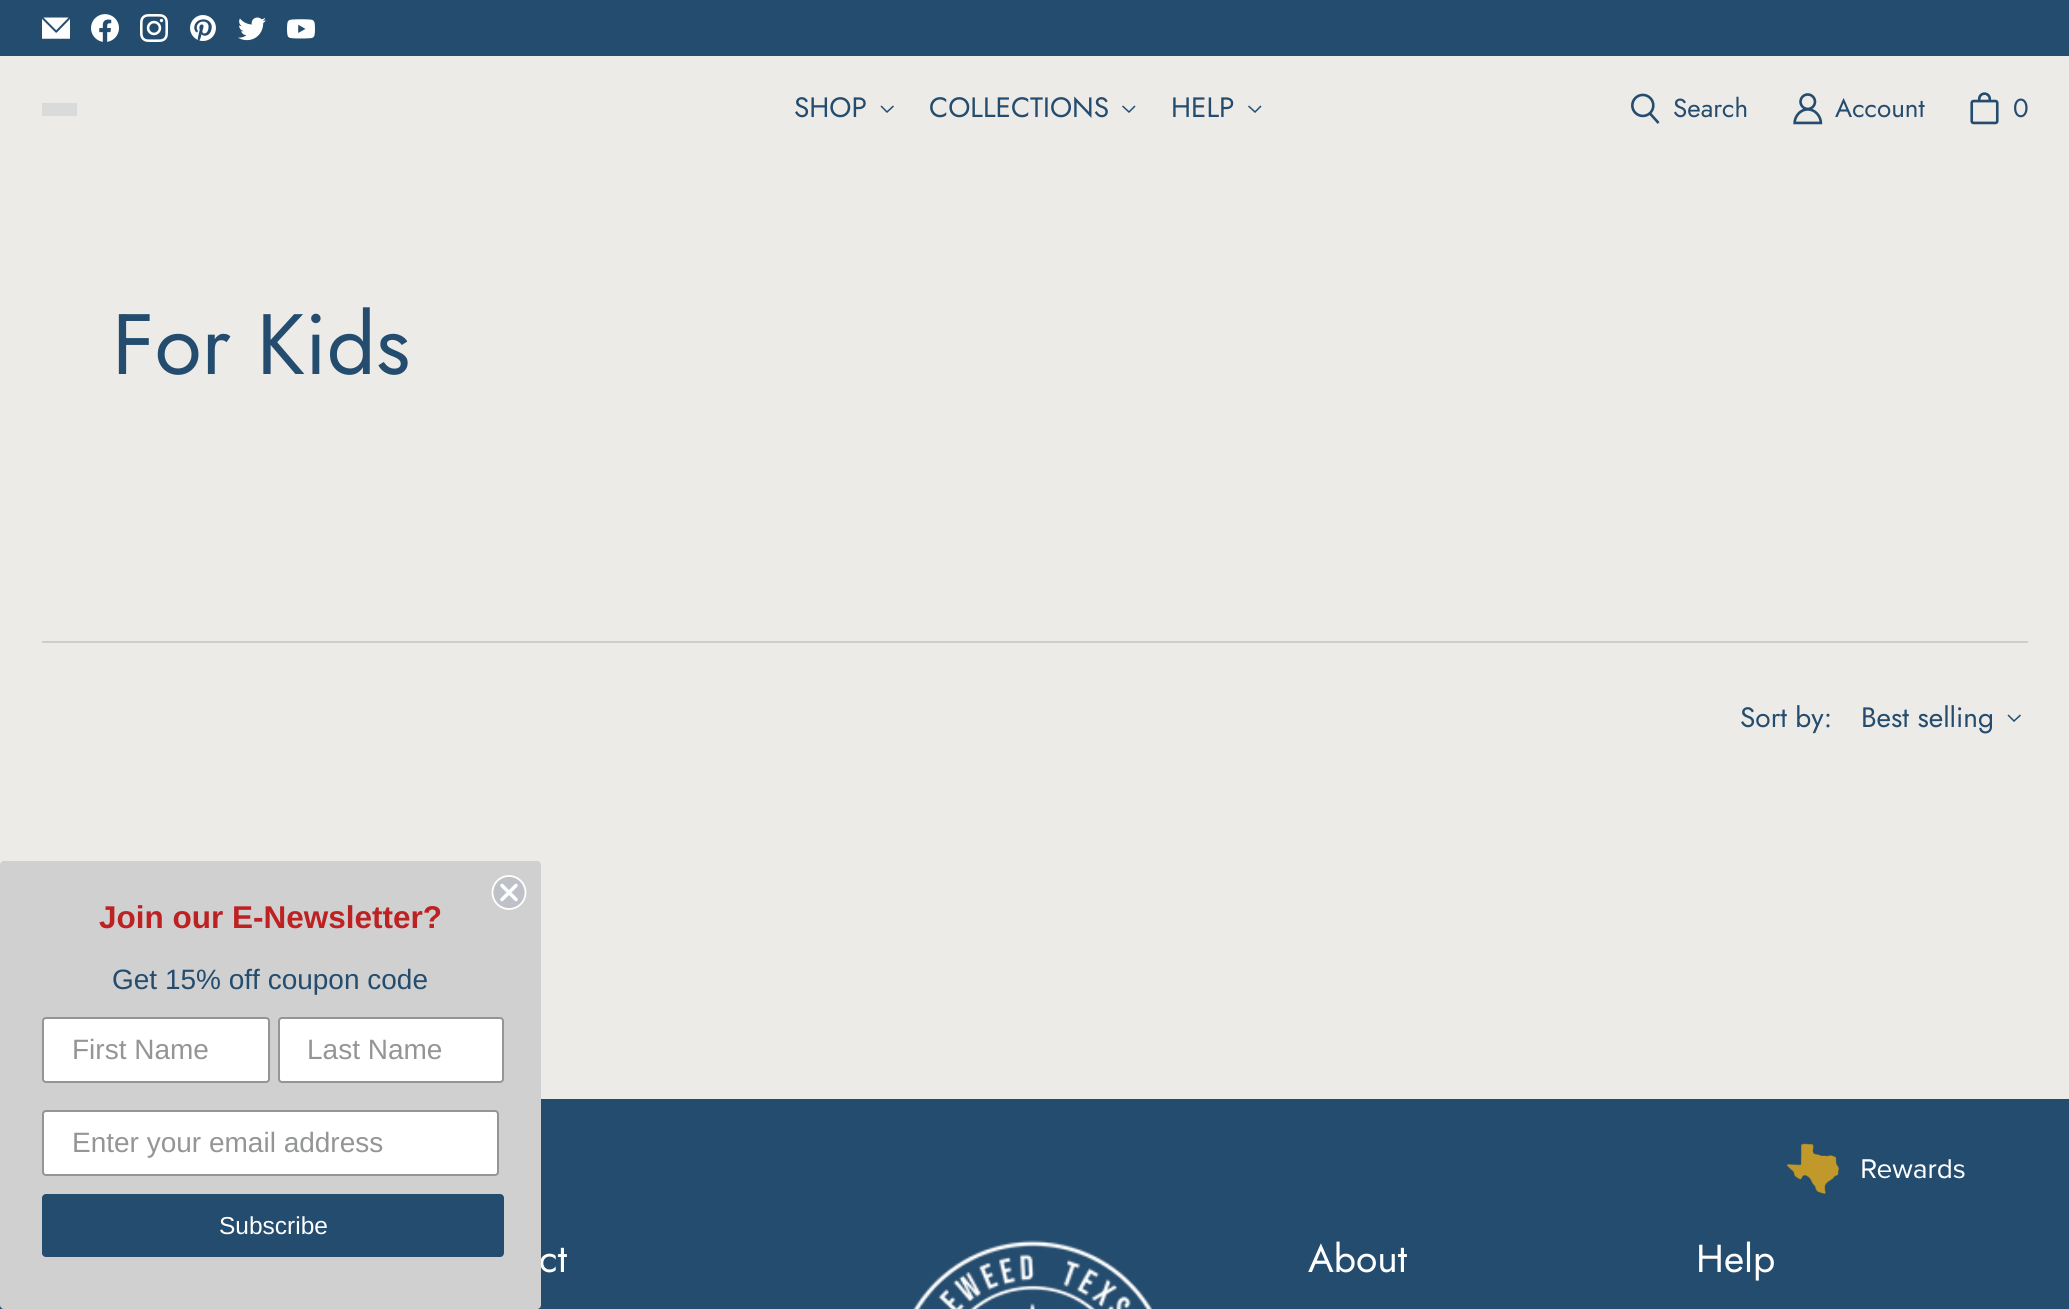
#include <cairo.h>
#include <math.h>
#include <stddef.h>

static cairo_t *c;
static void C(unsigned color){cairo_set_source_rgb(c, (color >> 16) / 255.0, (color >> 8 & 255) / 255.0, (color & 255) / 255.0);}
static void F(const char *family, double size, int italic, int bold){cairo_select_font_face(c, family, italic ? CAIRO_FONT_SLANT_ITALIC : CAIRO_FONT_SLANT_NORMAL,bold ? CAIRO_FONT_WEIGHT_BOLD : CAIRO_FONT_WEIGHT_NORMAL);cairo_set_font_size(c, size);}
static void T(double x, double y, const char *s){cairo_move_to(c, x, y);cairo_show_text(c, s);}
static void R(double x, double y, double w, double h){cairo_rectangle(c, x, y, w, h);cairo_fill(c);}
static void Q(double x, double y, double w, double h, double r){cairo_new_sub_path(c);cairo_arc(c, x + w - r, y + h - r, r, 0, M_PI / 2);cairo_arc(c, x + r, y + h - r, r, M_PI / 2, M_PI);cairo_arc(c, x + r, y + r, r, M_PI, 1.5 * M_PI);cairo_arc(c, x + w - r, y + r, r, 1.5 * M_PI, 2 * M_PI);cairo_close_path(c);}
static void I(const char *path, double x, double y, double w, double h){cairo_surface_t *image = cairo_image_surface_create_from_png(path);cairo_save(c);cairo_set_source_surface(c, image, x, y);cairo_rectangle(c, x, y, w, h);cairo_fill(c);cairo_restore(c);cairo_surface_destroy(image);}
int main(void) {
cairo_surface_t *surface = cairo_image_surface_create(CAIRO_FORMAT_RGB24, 2069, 1309);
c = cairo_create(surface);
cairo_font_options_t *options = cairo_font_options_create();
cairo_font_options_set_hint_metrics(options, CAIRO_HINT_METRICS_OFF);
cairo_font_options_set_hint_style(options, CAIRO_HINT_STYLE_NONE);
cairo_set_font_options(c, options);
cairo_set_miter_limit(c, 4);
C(0xedebe7);
cairo_paint(c);
C(0x244c6e);
R(0,0,2069,56);
I("1.png",42,17,28,22);
I("2.png",91,14,28,28);
I("3.png",140,14,28,28);
I("4.png",190,15,26,26);
I("5.png",238,17,28,24);
I("6.png",287,19,28,20);
C(0xd9dbdb);
R(42,103,35,13);
F("Jost",28,0,0);
C(0x244c6e);
T(794,117,"SHOP");
cairo_new_path(c);
cairo_move_to(c,881,106);
cairo_line_to(c,887,112);
cairo_line_to(c,893.5,106);
cairo_set_line_width(c,1.5);
cairo_stroke(c);
T(929,117,"COLLECTIONS");
cairo_new_path(c);
cairo_move_to(c,1122.5,106);
cairo_line_to(c,1129,112);
cairo_line_to(c,1135,106);
cairo_stroke(c);
T(1171,117,"HELP");
cairo_new_path(c);
cairo_move_to(c,1248.5,106);
cairo_line_to(c,1255,112);
cairo_line_to(c,1261,106);
cairo_stroke(c);
I("7.png",1631,93,29,31);
F("Jost",26,0,0);
T(1673,117,"Search");
I("8.png",1793,93,30,32);
T(1835,117,"Account");
I("9.png",1970,92,29,33);
T(2013,117,"0");
F("Jost",85.5,0,0);
T(112,374,"For Kids");
C(0xcfcdc9);
R(42,641,1986,2);
F("Jost",28,0,0);
C(0x244c6e);
T(1740,727,"Sort by:");
T(1861,727,"Best selling");
cairo_new_path(c);
cairo_move_to(c,2008,715);
cairo_line_to(c,2014,721);
cairo_line_to(c,2020.5,715);
cairo_stroke(c);
R(0,1099,2069,210);
F("Jost",39,0,0);
C(0xffffff);
T(539,1272,"ct");
C(0xd0d0d0);
Q(0,861,541,448,4);
cairo_fill(c);
C(0xbec2c8);
cairo_arc(c,509,892.5,16.5,0,2 * M_PI);
cairo_fill_preserve(c);
C(0xffffff);
cairo_set_line_width(c,1.8);
cairo_stroke(c);
cairo_new_path(c);
cairo_move_to(c,502,885.5);
cairo_line_to(c,516,899.5);
cairo_move_to(c,502,899.5);
cairo_line_to(c,516,885.5);
cairo_close_path(c);
cairo_set_line_width(c,3.5);
cairo_set_line_cap(c,CAIRO_LINE_CAP_ROUND);
cairo_set_line_join(c,CAIRO_LINE_JOIN_ROUND);
cairo_stroke(c);
F("Liberation Sans",31.5,0,1);
C(0xbe2121);
T(99,928,"Join our E-Newsletter?");
F("Liberation Sans",28,0,0);
C(0x244c6e);
T(112,989,"Get 15% off coupon code");
C(0xffffff);
Q(43,1018,226,64,3);
cairo_fill_preserve(c);
C(0x949596);
cairo_set_line_width(c,2);
cairo_set_line_cap(c,CAIRO_LINE_CAP_BUTT);
cairo_set_line_join(c,CAIRO_LINE_JOIN_MITER);
cairo_stroke(c);
T(72,1059,"First Name");
C(0xffffff);
Q(279,1018,224,64,3);
cairo_fill_preserve(c);
C(0x949596);
cairo_stroke(c);
T(307,1059,"Last Name");
C(0xffffff);
Q(43,1111,455,64,3);
cairo_fill_preserve(c);
C(0x949596);
cairo_stroke(c);
T(72,1152,"Enter your email address");
C(0x244c6e);
Q(42,1194,462,63,4);
cairo_fill(c);
F("Liberation Sans",24.5,0,0);
C(0xffffff);
T(219,1234,"Subscribe");
I("10.png",1786,1143,179,51);
I("11.png",913,1240,241,69);
F("Jost",39,0,0);
T(1308,1272,"About");
T(1696,1272,"Help");
cairo_surface_write_to_png(surface, "o.png");
cairo_font_options_destroy(options);
cairo_destroy(c);
cairo_surface_destroy(surface);
return 0;
}
